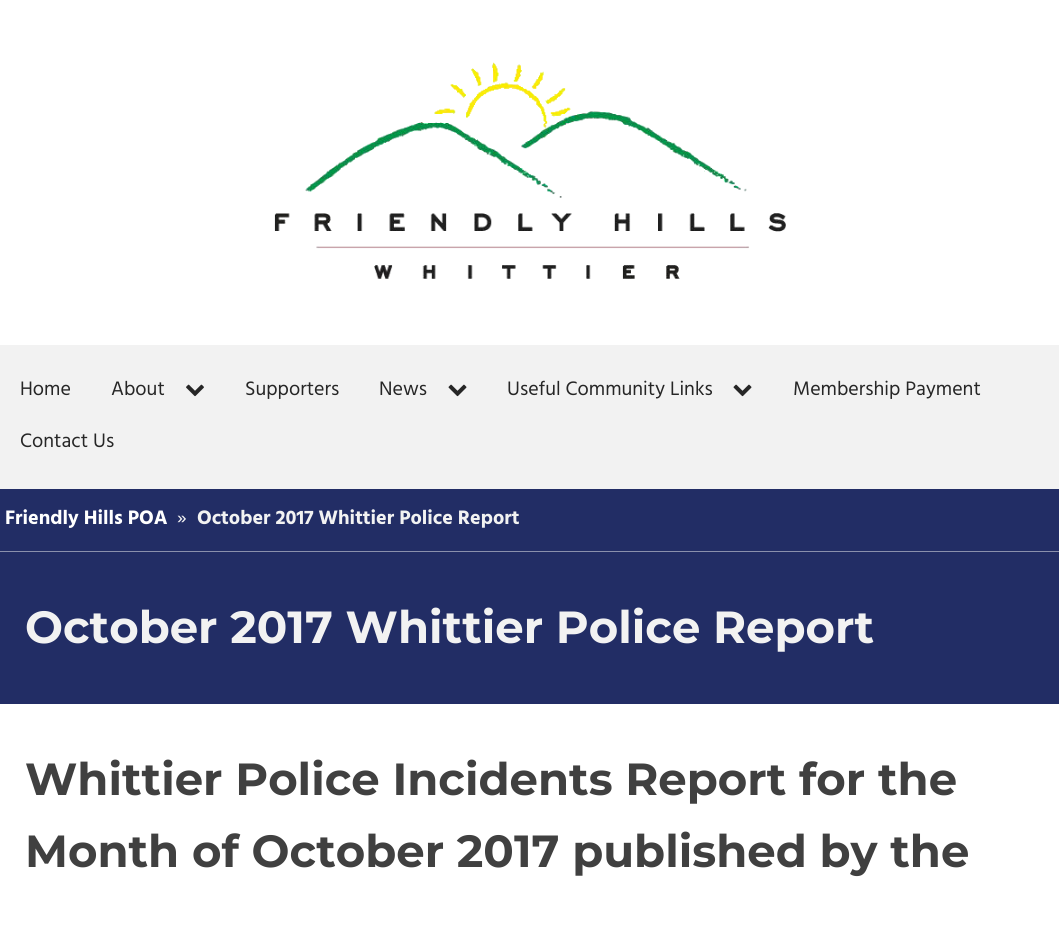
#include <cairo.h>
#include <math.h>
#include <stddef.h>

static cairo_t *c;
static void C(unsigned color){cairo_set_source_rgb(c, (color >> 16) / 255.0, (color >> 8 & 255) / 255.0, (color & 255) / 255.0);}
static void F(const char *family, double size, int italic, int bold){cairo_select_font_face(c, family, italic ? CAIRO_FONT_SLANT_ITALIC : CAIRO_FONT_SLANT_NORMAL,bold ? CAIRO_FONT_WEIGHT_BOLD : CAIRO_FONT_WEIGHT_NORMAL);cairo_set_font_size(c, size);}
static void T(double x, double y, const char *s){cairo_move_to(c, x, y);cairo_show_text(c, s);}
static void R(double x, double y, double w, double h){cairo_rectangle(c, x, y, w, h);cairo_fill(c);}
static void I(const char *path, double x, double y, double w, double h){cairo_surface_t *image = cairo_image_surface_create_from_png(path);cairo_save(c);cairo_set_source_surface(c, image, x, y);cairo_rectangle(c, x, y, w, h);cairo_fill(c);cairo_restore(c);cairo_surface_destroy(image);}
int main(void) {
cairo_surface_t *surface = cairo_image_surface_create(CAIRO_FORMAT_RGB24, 1059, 927);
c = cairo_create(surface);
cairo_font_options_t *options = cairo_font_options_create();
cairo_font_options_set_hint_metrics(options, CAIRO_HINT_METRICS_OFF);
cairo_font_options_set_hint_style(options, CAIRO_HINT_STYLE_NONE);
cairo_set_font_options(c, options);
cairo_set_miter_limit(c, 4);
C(0xffffff);
cairo_paint(c);
I("1.png",274,62,512,217);
C(0xf2f2f2);
R(0,345,1059,144);
F("Hind",20,0,0);
C(0x262626);
T(20,395,"Home");
T(111,395,"About");
I("2.png",186,384,18,13);
T(245,395,"Supporters");
T(379,395,"News");
I("3.png",448,384,19,13);
T(507,395,"Useful Community Links");
I("3.png",733,384,19,13);
T(793,395,"Membership Payment");
T(20,447,"Contact Us");
C(0x222d65);
R(0,489,1059,215);
C(0x8a90ac);
R(0,551,1059,1);
F("Hind",20,0,1);
C(0xffffff);
T(5,524,"Friendly Hills POA");
F("Hind",20,0,0);
C(0xf2f2f2);
T(177,524,"»");
F("Hind",20,0,1);
T(197,524,"October 2017 Whittier Police Report");
F("Montserrat",45,0,1);
T(25,643,"October 2017 Whittier Police Report");
C(0x404040);
T(25,795,"Whittier Police Incidents Report for the");
T(25,867,"Month of October 2017 published by the");
cairo_surface_write_to_png(surface, "o.png");
cairo_font_options_destroy(options);
cairo_destroy(c);
cairo_surface_destroy(surface);
return 0;
}
